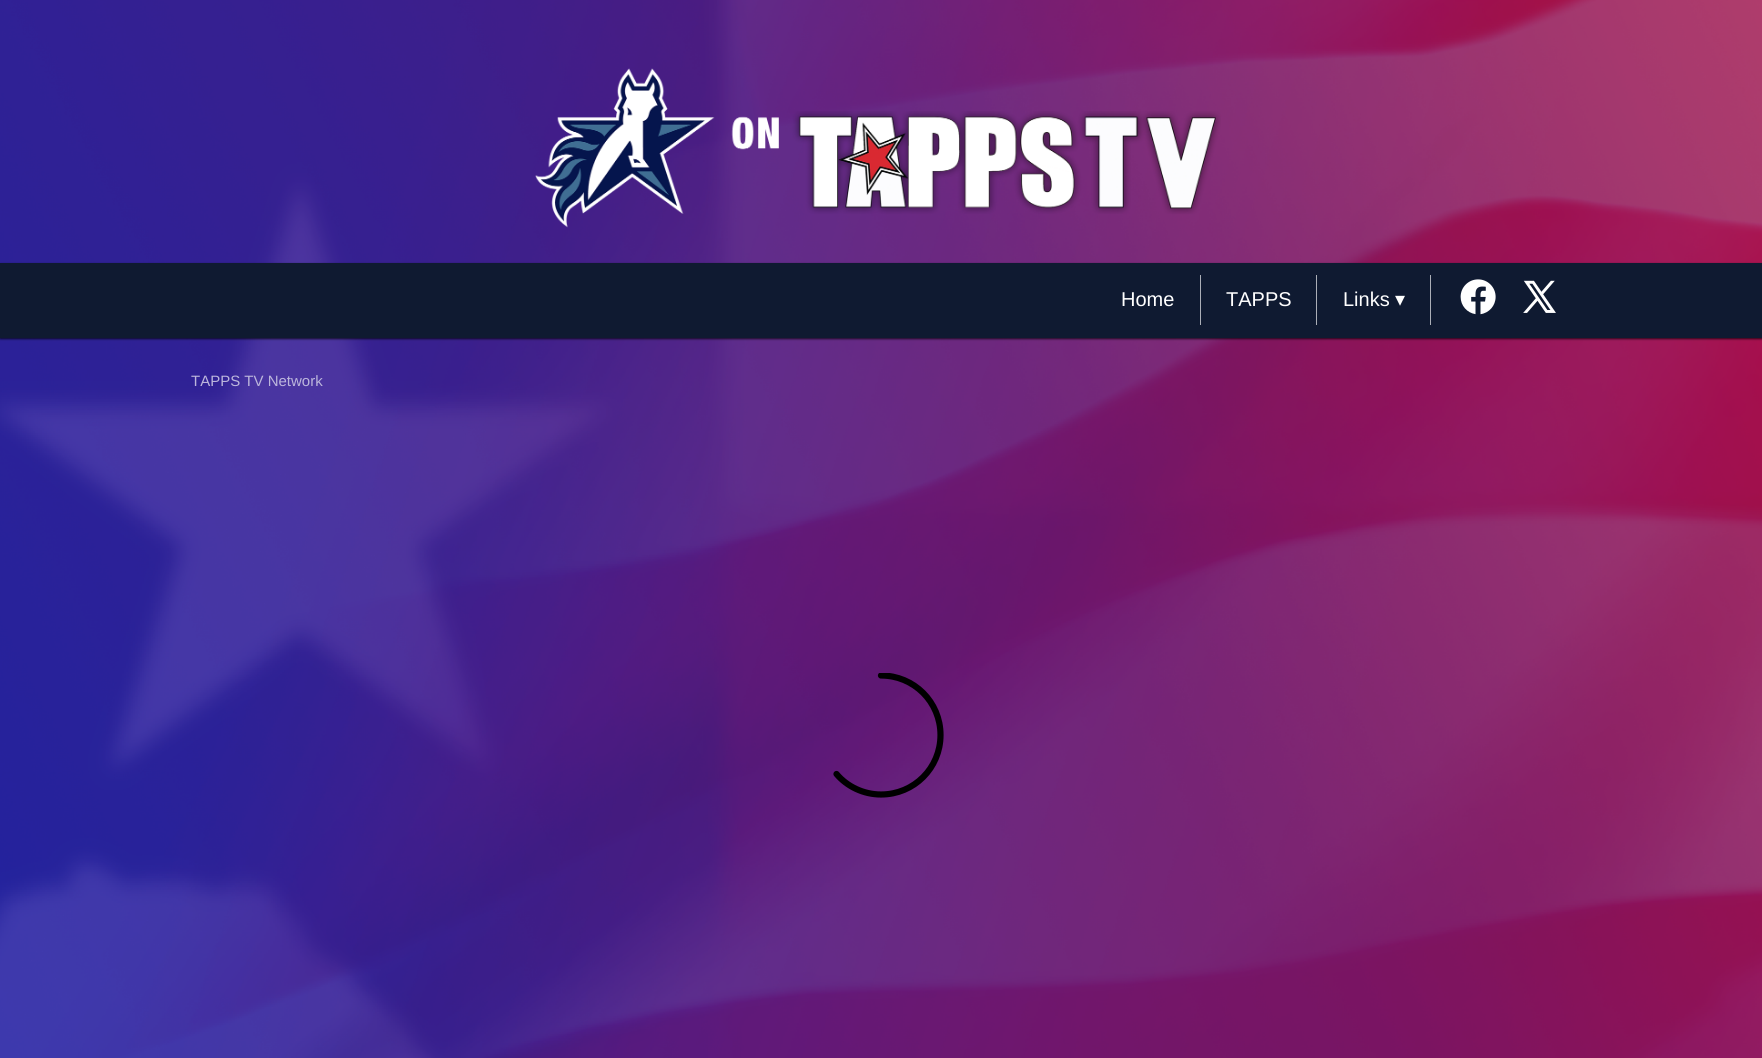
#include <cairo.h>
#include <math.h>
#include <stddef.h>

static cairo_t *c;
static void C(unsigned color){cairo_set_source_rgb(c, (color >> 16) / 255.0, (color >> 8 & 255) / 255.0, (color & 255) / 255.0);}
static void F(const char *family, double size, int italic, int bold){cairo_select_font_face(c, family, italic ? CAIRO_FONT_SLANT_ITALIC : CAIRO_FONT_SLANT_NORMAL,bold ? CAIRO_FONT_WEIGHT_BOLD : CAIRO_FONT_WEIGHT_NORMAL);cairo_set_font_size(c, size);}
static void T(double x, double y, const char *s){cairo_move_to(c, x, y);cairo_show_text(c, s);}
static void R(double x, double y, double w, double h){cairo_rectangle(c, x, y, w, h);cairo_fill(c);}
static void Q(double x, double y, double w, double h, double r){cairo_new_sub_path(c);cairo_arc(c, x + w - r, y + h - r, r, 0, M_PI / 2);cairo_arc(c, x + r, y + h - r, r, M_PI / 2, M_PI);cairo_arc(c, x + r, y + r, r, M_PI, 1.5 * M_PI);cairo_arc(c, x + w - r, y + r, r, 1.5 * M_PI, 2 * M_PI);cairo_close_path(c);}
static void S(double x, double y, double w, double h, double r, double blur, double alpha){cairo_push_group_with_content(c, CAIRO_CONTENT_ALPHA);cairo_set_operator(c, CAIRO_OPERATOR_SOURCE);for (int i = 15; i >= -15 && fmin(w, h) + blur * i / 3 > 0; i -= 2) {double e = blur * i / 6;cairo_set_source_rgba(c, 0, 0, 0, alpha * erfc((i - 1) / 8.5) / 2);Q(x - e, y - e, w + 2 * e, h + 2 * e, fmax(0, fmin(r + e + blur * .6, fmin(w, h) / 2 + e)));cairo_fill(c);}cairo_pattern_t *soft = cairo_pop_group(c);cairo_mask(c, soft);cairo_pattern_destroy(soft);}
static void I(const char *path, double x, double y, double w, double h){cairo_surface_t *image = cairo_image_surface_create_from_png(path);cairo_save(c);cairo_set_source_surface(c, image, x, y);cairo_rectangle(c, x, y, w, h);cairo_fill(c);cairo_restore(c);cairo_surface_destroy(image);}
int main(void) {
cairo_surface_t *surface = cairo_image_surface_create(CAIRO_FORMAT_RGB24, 1762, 1058);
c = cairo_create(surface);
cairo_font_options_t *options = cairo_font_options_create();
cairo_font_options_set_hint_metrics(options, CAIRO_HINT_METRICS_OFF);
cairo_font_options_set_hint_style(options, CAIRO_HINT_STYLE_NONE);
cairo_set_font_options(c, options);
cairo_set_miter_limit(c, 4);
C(0xffffff);
cairo_paint(c);
I("1.png",0,0,1762,1058);
I("2.png",535,68,686,160);
C(0x000000);
S(0,264,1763,75,0,1,.75);
C(0x0f1a31);
R(0,263,1762,75);
C(0xabafb7);
R(1200,275,1,50);
F("Liberation Sans",20,0,0);
C(0xffffff);
T(1121,306,"Home");
C(0xabafb7);
R(1316,275,1,50);
C(0xffffff);
T(1226,306,"TAPPS");
C(0xabafb7);
R(1430,275,1,50);
C(0xffffff);
T(1343,306,"Links");
F("DejaVu Sans",20,0,0);
T(1395,306,"▾");
I("3.png",1460,279,36,36);
I("4.png",1523,280,33,33);
F("Liberation Sans",15,0,0);
C(0xbcb6dc);
T(191,386,"TAPPS TV Network");
cairo_save(c);
cairo_rectangle(c,819,673,125,125);
cairo_clip(c);
cairo_new_path(c);
cairo_move_to(c,881,675.5);
cairo_curve_to(c,914,675.5,940.5,702,940.5,735);
cairo_curve_to(c,940.5,768,914,794.5,881,794.5);
cairo_curve_to(c,863.5,794.5,847,786.5,836.5,774);
C(0x000000);
cairo_set_line_width(c,6.2);
cairo_set_line_cap(c,CAIRO_LINE_CAP_ROUND);
cairo_stroke(c);
cairo_restore(c);
cairo_surface_write_to_png(surface, "o.png");
cairo_font_options_destroy(options);
cairo_destroy(c);
cairo_surface_destroy(surface);
return 0;
}
